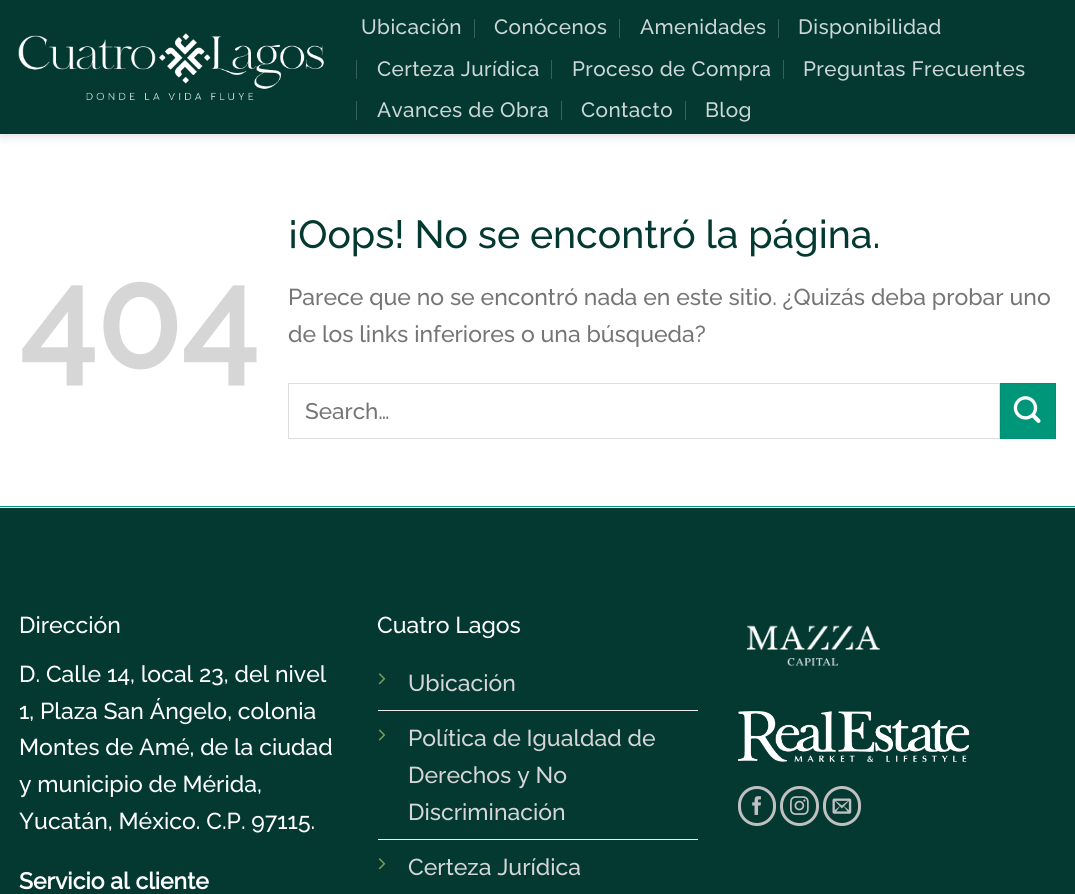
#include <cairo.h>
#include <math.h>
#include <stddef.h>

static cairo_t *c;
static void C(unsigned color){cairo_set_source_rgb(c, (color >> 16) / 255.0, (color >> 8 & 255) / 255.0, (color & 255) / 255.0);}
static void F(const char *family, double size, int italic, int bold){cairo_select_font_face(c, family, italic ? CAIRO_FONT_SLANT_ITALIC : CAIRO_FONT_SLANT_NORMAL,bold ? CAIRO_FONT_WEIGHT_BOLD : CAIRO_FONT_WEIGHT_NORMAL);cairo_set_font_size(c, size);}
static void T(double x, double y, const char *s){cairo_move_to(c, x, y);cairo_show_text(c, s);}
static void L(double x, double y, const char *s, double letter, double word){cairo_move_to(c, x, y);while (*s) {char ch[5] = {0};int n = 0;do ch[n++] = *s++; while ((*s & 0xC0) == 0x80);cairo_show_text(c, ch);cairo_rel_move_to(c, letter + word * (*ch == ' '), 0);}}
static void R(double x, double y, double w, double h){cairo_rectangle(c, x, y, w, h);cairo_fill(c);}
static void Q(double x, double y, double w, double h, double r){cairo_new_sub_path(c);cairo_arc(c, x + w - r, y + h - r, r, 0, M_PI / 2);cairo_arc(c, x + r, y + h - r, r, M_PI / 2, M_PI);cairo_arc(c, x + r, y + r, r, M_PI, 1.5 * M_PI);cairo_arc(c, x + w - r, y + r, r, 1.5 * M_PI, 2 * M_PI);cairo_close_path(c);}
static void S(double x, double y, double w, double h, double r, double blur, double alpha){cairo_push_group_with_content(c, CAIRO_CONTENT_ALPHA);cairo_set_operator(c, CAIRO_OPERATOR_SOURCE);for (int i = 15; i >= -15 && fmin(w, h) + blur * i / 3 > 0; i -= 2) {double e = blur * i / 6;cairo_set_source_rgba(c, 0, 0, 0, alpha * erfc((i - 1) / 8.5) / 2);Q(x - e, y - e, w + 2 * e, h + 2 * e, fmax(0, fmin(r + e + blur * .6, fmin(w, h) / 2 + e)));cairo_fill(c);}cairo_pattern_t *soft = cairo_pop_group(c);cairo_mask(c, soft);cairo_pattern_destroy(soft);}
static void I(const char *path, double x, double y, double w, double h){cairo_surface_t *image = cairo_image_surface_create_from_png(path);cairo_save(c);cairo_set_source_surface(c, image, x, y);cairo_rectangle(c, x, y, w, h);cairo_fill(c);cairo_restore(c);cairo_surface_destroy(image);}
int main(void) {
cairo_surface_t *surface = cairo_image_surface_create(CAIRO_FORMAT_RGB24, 1075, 894);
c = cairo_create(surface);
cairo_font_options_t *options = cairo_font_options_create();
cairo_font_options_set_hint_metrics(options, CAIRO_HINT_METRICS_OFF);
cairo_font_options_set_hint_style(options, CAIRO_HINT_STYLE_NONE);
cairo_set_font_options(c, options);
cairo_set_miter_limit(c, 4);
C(0xffffff);
cairo_paint(c);
C(0x000000);
S(1,1,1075,134,0,6,.15);
C(0x033931);
R(0,0,1075,134);
I("1.png",18,33,306,67);
F("Raleway Medium",20.75,0,0);
C(0xcdd7d6);
L(361,34,"Ubicación",.4,0);
C(0x35615a);
R(474,19,1,19);
C(0xcdd7d6);
L(494,34,"Conócenos",.4,0);
C(0x35615a);
R(619,19,1,19);
C(0xcdd7d6);
L(640,34,"Amenidades",.4,0);
C(0x35615a);
R(778,19,1,19);
C(0xcdd7d6);
L(798,34,"Disponibilidad",.4,0);
C(0x35615a);
R(356,60,1,19);
C(0xcdd7d6);
L(377,76,"Certeza Jurídica",.4,0);
C(0x35615a);
R(551,60,1,19);
C(0xcdd7d6);
L(572,76,"Proceso de Compra",.4,0);
C(0x35615a);
R(783,60,1,19);
C(0xcdd7d6);
L(803,76,"Preguntas Frecuentes",.4,0);
C(0x35615a);
R(356,101,1,19);
C(0xcdd7d6);
L(377,117,"Avances de Obra",.4,0);
C(0x35615a);
R(561,101,1,19);
C(0xcdd7d6);
L(581,117,"Contacto",.4,0);
C(0x35615a);
R(685,101,1,19);
C(0xcdd7d6);
L(705,117,"Blog",.4,0);
F("Raleway",138,0,1);
C(0xd6d6d6);
T(19,368,"404");
F("Raleway Medium",39.1,0,0);
C(0x033931);
T(288,248,"¡Oops! No se encontró la página.");
F("Raleway Medium",23,0,0);
C(0x757575);
T(288,305,"Parece que no se encontró nada en este sitio. ¿Quizás deba probar uno");
T(288,342,"de los links inferiores o una búsqueda?");
cairo_rectangle(c,288.5,383.5,711,55);
C(0xdddddd);
cairo_set_line_width(c,1);
cairo_stroke(c);
F("Raleway Medium",22.5,0,0);
C(0x757575);
T(305,419,"Search…");
C(0x00967a);
cairo_rectangle(c,1000.5,383.5,55,55);
cairo_fill_preserve(c);
C(0x008f74);
cairo_stroke(c);
I("2.png",1013,396,28,27);
C(0x00967a);
R(0,506,1075,1);
C(0x033931);
R(0,508,1075,386);
F("Raleway Medium",23,0,0);
C(0xffffff);
T(19,633,"Dirección");
T(19,682,"D. Calle 14, local 23, del nivel");
T(19,719,"1, Plaza San Ángelo, colonia");
T(19,755,"Montes de Amé, de la ciudad");
T(19,792,"y municipio de Mérida,");
T(19,829,"Yucatán, México. C.P. 97115.");
F("Raleway",23,0,1);
T(19,889,"Servicio al cliente");
F("Raleway Medium",23,0,0);
T(377,633,"Cuatro Lagos");
C(0xececec);
R(378,710,320,1);
I("3.png",378,673,8,12);
C(0xd6d6d6);
T(408,691,"Ubicación");
C(0xececec);
R(378,839,320,1);
I("4.png",378,729,8,12);
C(0xd6d6d6);
T(408,746,"Política de Igualdad de");
T(408,783,"Derechos y No");
T(408,820,"Discriminación");
I("3.png",378,858,8,12);
T(408,875,"Certeza Jurídica");
I("5.png",746,625,134,42);
I("6.png",738,711,232,51);
Q(739.5,787.5,35,37,17.5);
C(0xc0c0c0);
cairo_set_line_width(c,3);
cairo_stroke(c);
I("7.png",752,796,9,19);
Q(781.5,787.5,36,37,18);
cairo_stroke(c);
I("8.png",790,796,19,19);
Q(824.5,787.5,35,37,17.5);
cairo_stroke(c);
I("9.png",832,798,20,16);
cairo_surface_write_to_png(surface, "o.png");
cairo_font_options_destroy(options);
cairo_destroy(c);
cairo_surface_destroy(surface);
return 0;
}
